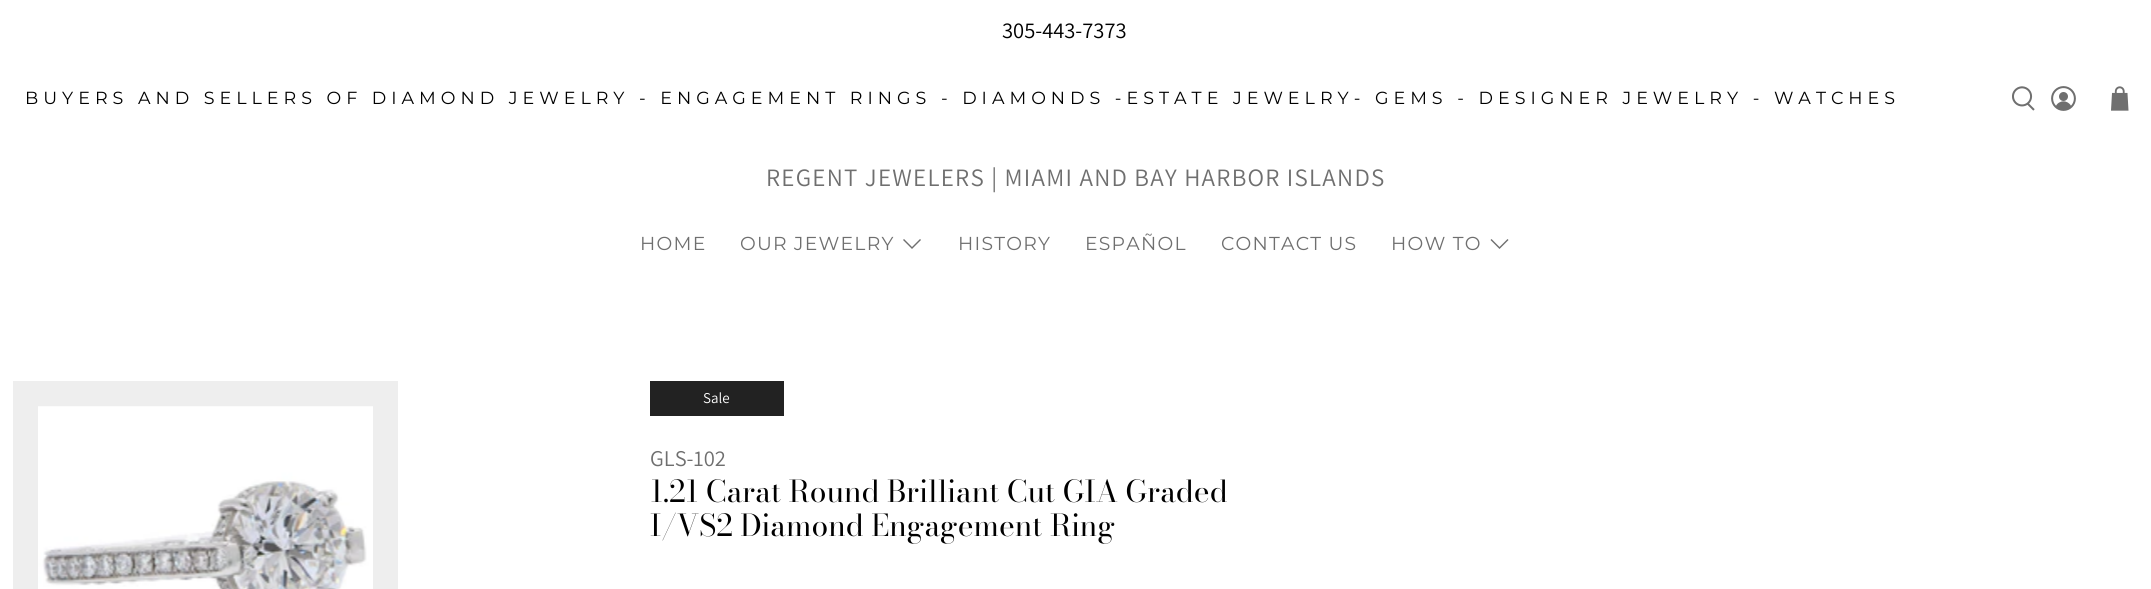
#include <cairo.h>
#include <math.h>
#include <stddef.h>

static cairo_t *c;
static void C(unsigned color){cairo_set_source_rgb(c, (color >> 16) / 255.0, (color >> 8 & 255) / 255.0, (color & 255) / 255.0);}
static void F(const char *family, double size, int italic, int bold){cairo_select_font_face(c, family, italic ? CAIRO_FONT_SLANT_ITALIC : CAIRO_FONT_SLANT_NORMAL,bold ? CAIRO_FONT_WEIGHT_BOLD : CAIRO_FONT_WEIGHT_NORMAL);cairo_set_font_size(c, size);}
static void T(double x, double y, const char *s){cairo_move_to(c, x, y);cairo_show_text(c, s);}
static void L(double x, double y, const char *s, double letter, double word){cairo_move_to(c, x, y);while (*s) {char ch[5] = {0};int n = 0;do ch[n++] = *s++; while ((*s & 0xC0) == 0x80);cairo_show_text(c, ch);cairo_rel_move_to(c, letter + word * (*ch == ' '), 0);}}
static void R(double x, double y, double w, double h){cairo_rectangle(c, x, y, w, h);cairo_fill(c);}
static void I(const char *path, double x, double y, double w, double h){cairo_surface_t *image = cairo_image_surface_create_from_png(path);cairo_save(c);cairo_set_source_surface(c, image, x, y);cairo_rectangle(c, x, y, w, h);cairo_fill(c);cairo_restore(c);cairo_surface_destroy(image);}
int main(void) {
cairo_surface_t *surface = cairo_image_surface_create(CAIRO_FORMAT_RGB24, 2151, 589);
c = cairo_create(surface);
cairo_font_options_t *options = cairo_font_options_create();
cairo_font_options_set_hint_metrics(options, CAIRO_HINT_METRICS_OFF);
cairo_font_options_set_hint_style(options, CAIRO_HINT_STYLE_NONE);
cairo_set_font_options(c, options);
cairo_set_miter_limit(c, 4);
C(0xffffff);
cairo_paint(c);
F("Assistant",22.5,0,0);
C(0x000000);
T(1002,38,"305-443-7373");
F("Montserrat",17.5,0,0);
L(25,104,"BUYERS AND SELLERS OF DIAMOND JEWELRY - ENGAGEMENT RINGS - DIAMONDS -ESTATE JEWELRY- GEMS - DESIGNER JEWELRY - WATCHES",5,0);
I("1.png",2012,86,23,25);
I("2.png",2051,86,25,25);
I("3.png",2111,86,18,25);
F("Assistant",25,0,0);
C(0x6f6f6f);
L(766,186,"REGENT JEWELERS | MIAMI AND BAY HARBOR ISLANDS",1.25,0);
F("Montserrat",18.75,0,0);
L(640,250,"HOME",1.25,0);
L(740,250,"OUR JEWELRY",1.25,0);
cairo_new_path(c);
cairo_move_to(c,912,249);
cairo_line_to(c,903,240);
cairo_line_to(c,904,239);
cairo_line_to(c,912,247);
cairo_line_to(c,920,239);
cairo_line_to(c,921,240);
cairo_close_path(c);
cairo_fill(c);
L(958,250,"HISTORY",1.25,0);
L(1085,250,"ESPAÑOL",1.25,0);
L(1221,250,"CONTACT US",1.25,0);
L(1391,250,"HOW TO",1.25,0);
cairo_new_path(c);
cairo_move_to(c,1499.5,249);
cairo_line_to(c,1490.5,240);
cairo_line_to(c,1491.5,239);
cairo_line_to(c,1499.5,247);
cairo_line_to(c,1507.5,239);
cairo_line_to(c,1508.5,240);
cairo_close_path(c);
cairo_fill(c);
C(0xeeeeee);
R(13,381,385,208);
I("4.png",38,406,335,183);
C(0x222222);
R(650,381,134,35);
F("Assistant",15,0,0);
C(0xffffff);
T(703,403,"Sale");
F("Assistant",22.5,0,0);
C(0x6f6f6f);
T(650,466,"GLS-102");
F("Bodoni Moda",30,0,0);
C(0x000000);
T(650,502,"1.21 Carat Round Brilliant Cut GIA Graded");
T(650,536,"I/VS2 Diamond Engagement Ring");
cairo_surface_write_to_png(surface, "o.png");
cairo_font_options_destroy(options);
cairo_destroy(c);
cairo_surface_destroy(surface);
return 0;
}
